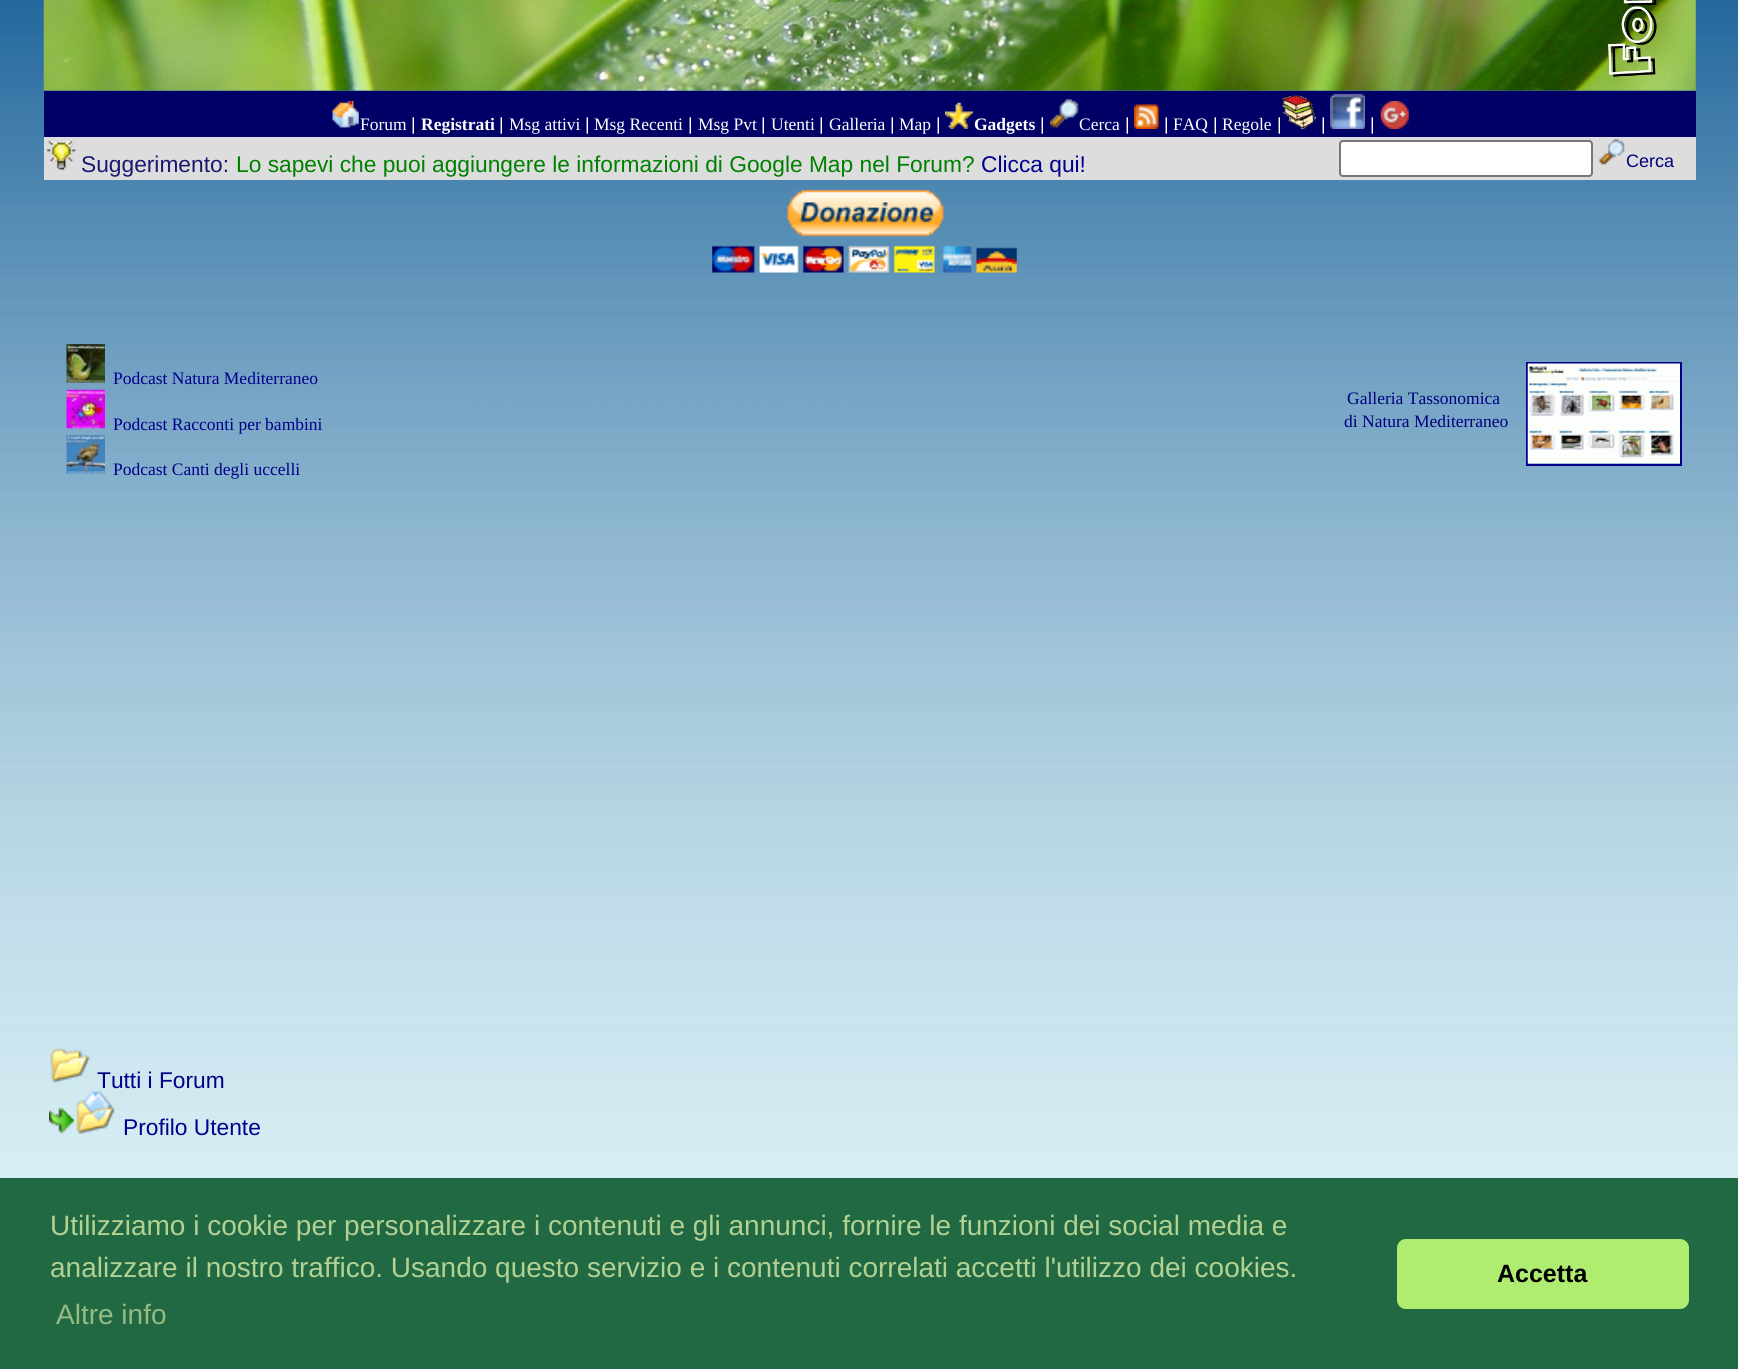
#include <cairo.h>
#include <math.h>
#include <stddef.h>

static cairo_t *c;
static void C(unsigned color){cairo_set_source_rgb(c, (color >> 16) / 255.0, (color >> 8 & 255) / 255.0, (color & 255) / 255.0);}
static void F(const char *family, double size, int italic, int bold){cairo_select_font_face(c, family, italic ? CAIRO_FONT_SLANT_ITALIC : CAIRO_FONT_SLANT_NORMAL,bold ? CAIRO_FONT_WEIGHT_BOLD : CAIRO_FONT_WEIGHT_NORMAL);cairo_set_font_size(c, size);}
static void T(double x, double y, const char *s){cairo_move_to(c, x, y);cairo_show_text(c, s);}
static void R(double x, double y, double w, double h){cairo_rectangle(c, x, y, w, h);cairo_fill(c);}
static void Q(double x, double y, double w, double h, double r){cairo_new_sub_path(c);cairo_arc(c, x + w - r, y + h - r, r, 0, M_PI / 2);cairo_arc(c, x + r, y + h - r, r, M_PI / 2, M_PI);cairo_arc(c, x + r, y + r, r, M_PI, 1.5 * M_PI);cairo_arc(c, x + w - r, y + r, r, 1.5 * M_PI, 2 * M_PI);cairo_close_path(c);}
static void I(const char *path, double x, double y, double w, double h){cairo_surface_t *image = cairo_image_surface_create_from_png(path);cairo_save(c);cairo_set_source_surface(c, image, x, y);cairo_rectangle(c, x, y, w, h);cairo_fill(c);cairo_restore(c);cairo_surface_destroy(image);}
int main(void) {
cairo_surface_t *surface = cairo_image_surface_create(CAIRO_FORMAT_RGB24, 1738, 1369);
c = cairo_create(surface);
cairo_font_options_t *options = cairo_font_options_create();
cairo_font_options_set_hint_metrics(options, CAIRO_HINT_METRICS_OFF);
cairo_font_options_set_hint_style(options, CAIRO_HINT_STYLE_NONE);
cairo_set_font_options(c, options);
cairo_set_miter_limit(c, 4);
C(0xffffff);
cairo_paint(c);
I("1.png",0,0,1738,1178);
I("2.png",43,0,1653,91);
C(0x000066);
R(44,91,1652,46);
I("3.png",332,101,27,27);
F("Liberation Serif",17.5,0,0);
C(0xffffff);
T(360,130,"Forum");
F("Liberation Sans",17.5,0,0);
T(411,130,"|");
F("Liberation Serif",17.5,0,1);
T(421,130,"Registrati");
F("Liberation Sans",17.5,0,0);
T(499,130,"|");
F("Liberation Serif",17.5,0,0);
T(509,130,"Msg attivi");
F("Liberation Sans",17.5,0,0);
T(585,130,"|");
F("Liberation Serif",17.5,0,0);
T(594,130,"Msg Recenti");
F("Liberation Sans",17.5,0,0);
T(688,130,"|");
F("Liberation Serif",17.5,0,0);
T(698,130,"Msg Pvt");
F("Liberation Sans",17.5,0,0);
T(761,130,"|");
F("Liberation Serif",17.5,0,0);
T(771,130,"Utenti");
F("Liberation Sans",17.5,0,0);
T(819,130,"|");
F("Liberation Serif",17.5,0,0);
T(829,130,"Galleria");
F("Liberation Sans",17.5,0,0);
T(890,130,"|");
F("Liberation Serif",17.5,0,0);
T(899,130,"Map");
F("Liberation Sans",17.5,0,0);
T(936,130,"|");
I("4.png",945,102,28,27);
F("Liberation Serif",17.5,0,1);
T(974,130,"Gadgets");
F("Liberation Sans",17.5,0,0);
T(1040,130,"|");
I("5.png",1050,99,29,29);
F("Liberation Serif",17.5,0,0);
T(1079,130,"Cerca");
F("Liberation Sans",17.5,0,0);
T(1125,130,"|");
I("6.png",1134,104,25,25);
T(1164,130,"|");
F("Liberation Serif",17.5,0,0);
T(1173,130,"FAQ");
F("Liberation Sans",17.5,0,0);
T(1213,130,"|");
F("Liberation Serif",17.5,0,0);
T(1222,130,"Regole");
F("Liberation Sans",17.5,0,0);
T(1277,130,"|");
I("7.png",1282,95,34,34);
T(1321,130,"|");
I("8.png",1330,94,35,35);
T(1370,130,"|");
I("9.png",1380,101,29,28);
C(0xdddddd);
R(44,137,1652,43);
I("10.png",47,140,29,31);
F("Liberation Sans",22.75,0,0);
C(0x191970);
T(81,172,"Suggerimento:");
C(0x008000);
T(236,172,"Lo sapevi che puoi aggiungere le informazioni di Google Map nel Forum?");
C(0x00008b);
T(981,172,"Clicca qui!");
C(0xffffff);
Q(1340,141,252,35,3);
cairo_fill_preserve(c);
C(0x767676);
cairo_stroke(c);
I("11.png",1599,139,26,26);
F("Liberation Sans",18,0,0);
C(0x000080);
T(1626,167,"Cerca");
I("12.png",712,190,305,83);
I("13.png",66,344,39,39);
F("Liberation Serif",17.5,0,0);
C(0x00008b);
T(113,384,"Podcast Natura Mediterraneo");
I("14.png",66,389,39,40);
T(113,430,"Podcast Racconti per bambini");
I("15.png",66,435,39,39);
T(113,475,"Podcast Canti degli uccelli");
C(0x000080);
T(1347,404,"Galleria Tassonomica");
T(1344,427,"di Natura Mediterraneo");
cairo_rectangle(c,1527,363,154,102);
C(0x00008b);
cairo_stroke(c);
I("16.png",1527,363,153,101);
I("17.png",50,1047,40,36);
F("Liberation Sans",22.75,0,0);
T(97,1088,"Tutti i Forum");
I("18.png",49,1107,27,27);
I("19.png",76,1091,39,43);
T(123,1135,"Profilo Utente");
C(0x216942);
R(0,1178,1738,191);
F("Liberation Sans",28,0,0);
C(0xb2d192);
T(50,1235,"Utilizziamo i cookie per personalizzare i contenuti e gli annunci, fornire le funzioni dei social media e");
T(50,1277,"analizzare il nostro traffico. Usando questo servizio e i contenuti correlati accetti l'utilizzo dei cookies.");
C(0x95bc82);
T(56,1324,"Altre info");
C(0xafed71);
Q(1397,1239,292,70,9);
cairo_fill(c);
F("Liberation Sans",25,0,1);
C(0x000000);
T(1497,1282,"Accetta");
cairo_surface_write_to_png(surface, "o.png");
cairo_font_options_destroy(options);
cairo_destroy(c);
cairo_surface_destroy(surface);
return 0;
}
